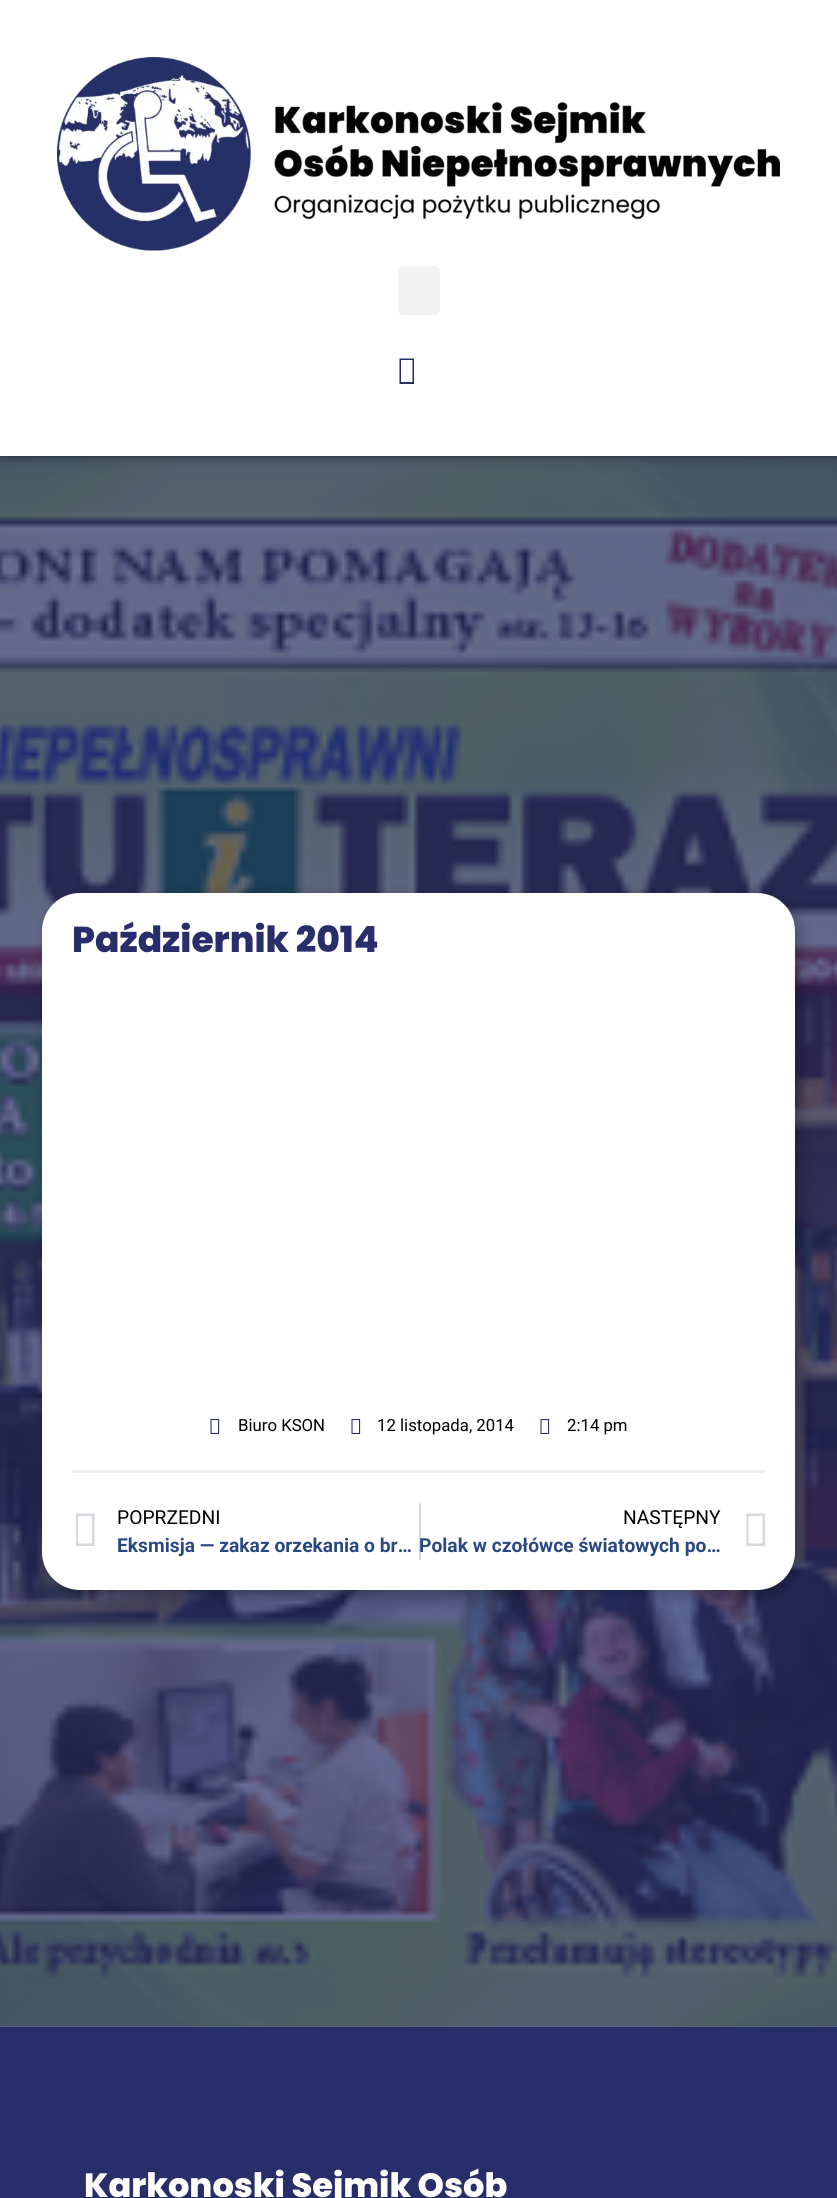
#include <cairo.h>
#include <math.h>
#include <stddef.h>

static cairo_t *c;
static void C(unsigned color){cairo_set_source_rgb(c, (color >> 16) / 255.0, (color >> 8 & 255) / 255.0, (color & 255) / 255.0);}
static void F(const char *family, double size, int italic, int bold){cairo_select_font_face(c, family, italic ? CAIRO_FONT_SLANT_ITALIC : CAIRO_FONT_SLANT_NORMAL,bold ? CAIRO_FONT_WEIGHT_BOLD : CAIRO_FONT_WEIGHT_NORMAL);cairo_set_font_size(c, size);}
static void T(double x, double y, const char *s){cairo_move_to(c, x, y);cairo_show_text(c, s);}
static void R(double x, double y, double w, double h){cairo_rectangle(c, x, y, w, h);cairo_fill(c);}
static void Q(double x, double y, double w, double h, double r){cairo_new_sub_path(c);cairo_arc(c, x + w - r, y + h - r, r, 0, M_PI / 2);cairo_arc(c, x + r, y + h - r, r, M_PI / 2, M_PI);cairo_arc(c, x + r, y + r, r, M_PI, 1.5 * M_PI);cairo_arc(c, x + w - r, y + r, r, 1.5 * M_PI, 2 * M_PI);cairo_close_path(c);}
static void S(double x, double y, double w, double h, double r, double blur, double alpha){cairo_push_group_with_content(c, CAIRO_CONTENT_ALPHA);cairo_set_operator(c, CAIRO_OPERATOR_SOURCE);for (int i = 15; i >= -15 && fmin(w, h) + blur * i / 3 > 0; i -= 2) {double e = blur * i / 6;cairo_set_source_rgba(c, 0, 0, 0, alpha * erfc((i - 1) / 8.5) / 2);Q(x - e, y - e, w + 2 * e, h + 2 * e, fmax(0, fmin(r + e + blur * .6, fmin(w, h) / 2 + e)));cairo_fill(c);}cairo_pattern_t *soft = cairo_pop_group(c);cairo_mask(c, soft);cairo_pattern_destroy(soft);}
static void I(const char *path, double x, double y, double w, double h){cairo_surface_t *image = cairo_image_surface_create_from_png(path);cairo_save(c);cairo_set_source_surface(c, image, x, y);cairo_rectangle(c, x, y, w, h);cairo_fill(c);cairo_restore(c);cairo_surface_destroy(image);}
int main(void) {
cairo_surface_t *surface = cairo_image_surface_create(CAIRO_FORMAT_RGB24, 837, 2198);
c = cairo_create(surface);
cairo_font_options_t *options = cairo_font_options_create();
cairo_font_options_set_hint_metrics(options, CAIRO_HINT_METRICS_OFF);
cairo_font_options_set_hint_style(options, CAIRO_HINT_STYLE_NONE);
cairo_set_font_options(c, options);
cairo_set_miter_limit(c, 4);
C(0xffffff);
cairo_paint(c);
C(0x696d96);
R(0,2026,837,1);
I("2.png",0,456,837,1571);
cairo_save(c);
cairo_rectangle(c,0,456,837,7);
cairo_clip(c);
C(0x000000);
S(0,0,837,456,0,4,.5);
cairo_restore(c);
I("1.png",57,57,723,194);
C(0xf2f2f2);
Q(398,266,42,49,5);
cairo_fill(c);
C(0x282e69);
cairo_new_path(c);
cairo_move_to(c,399.5,384);
cairo_line_to(c,399.5,358.5);
cairo_line_to(c,414,358.5);
cairo_line_to(c,414,384);
cairo_close_path(c);
cairo_move_to(c,401,382);
cairo_line_to(c,412.5,382);
cairo_line_to(c,412.5,360);
cairo_line_to(c,401,360);
cairo_close_path(c);
cairo_fill(c);
C(0x000000);
S(47,897,753,698,38,7.5,.27);
C(0xffffff);
Q(42,893,753,697,38);
cairo_fill(c);
F("Poppins ExtraBold",36,0,0);
C(0x282e69);
T(72,952,"Październik 2014");
I("3.png",210,1419,10,15);
F("Roboto",16.75,0,0);
C(0x000000);
T(238,1431,"Biuro KSON");
I("3.png",351,1419,10,15);
T(377,1431,"12 listopada, 2014");
I("3.png",540,1419,10,15);
T(567,1431,"2:14 pm");
C(0xeeeeee);
R(72,1470,693,3);
C(0xd5d8dc);
cairo_new_path(c);
cairo_move_to(c,76,1546);
cairo_line_to(c,76,1513.5);
cairo_line_to(c,94.5,1513.5);
cairo_line_to(c,94.5,1546);
cairo_close_path(c);
cairo_move_to(c,78,1543.5);
cairo_line_to(c,92,1543.5);
cairo_line_to(c,92,1516);
cairo_line_to(c,78,1516);
cairo_close_path(c);
cairo_fill(c);
F("Roboto",19.25,0,0);
C(0x000000);
T(117,1524,"POPRZEDNI");
F("Roboto",19.25,0,1);
C(0x2a4980);
T(117,1552,"Eksmisja — zakaz orzekania o br…");
C(0xd5d8dc);
R(419,1503,2,57);
F("Roboto",19.25,0,0);
C(0x000000);
T(623,1524,"NASTĘPNY");
F("Roboto",19.25,0,1);
C(0x2a4980);
T(419,1552,"Polak w czołówce światowych po…");
C(0xd5d8dc);
cairo_new_path(c);
cairo_move_to(c,746.5,1546);
cairo_line_to(c,746.5,1513.5);
cairo_line_to(c,765,1513.5);
cairo_line_to(c,765,1546);
cairo_close_path(c);
cairo_move_to(c,748.5,1543.5);
cairo_line_to(c,762.5,1543.5);
cairo_line_to(c,762.5,1516);
cairo_line_to(c,748.5,1516);
cairo_close_path(c);
cairo_fill(c);
C(0x282e69);
R(0,2027,837,171);
F("Poppins ExtraBold",33.6,0,0);
C(0xffffff);
T(84,2197,"Karkonoski Sejmik Osób");
cairo_surface_write_to_png(surface, "o.png");
cairo_font_options_destroy(options);
cairo_destroy(c);
cairo_surface_destroy(surface);
return 0;
}
